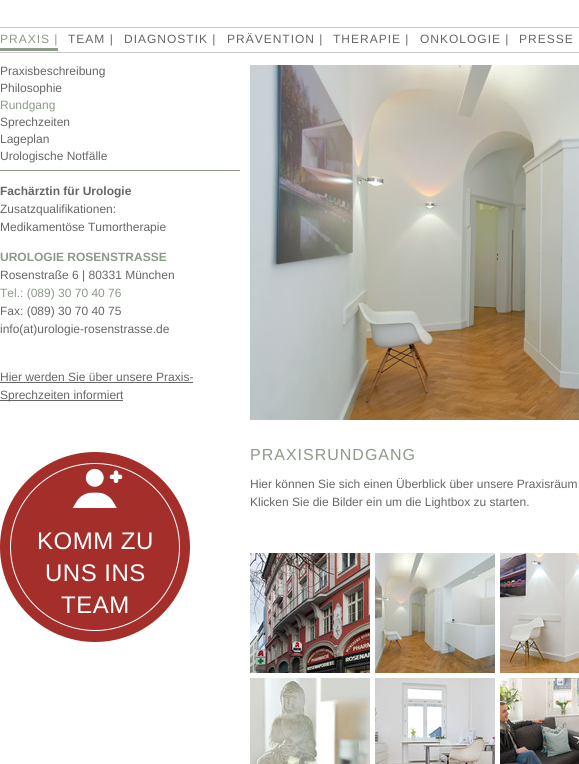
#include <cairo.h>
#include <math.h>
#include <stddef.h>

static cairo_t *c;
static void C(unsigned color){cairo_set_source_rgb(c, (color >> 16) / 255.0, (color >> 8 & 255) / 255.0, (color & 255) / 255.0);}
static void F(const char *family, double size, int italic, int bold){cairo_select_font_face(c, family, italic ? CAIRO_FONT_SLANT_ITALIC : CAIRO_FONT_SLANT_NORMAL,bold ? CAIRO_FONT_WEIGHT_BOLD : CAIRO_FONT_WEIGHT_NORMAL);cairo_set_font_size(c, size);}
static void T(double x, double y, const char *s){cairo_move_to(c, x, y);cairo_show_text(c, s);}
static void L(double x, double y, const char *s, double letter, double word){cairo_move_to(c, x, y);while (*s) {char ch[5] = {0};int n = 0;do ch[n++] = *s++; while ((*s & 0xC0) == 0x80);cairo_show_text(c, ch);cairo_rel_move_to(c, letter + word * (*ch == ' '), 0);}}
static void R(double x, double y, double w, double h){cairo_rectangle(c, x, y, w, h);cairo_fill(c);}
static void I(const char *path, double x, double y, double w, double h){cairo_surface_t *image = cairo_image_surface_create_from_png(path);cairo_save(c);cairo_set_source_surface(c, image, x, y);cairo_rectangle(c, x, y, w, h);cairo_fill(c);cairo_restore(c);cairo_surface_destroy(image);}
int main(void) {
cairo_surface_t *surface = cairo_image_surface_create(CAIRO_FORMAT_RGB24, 579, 764);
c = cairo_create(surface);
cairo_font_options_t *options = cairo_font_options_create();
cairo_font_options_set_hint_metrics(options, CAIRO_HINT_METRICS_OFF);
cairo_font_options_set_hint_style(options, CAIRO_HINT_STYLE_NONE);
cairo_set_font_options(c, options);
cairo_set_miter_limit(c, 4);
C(0xffffff);
cairo_paint(c);
C(0xc8cac7);
R(0,27,579,1);
R(0,52,579,1);
C(0x8d9989);
R(0,48,58,3);
F("Liberation Sans",12,0,0);
L(0,43,"PRAXIS |",1,0);
R(0,170,240,1);
C(0x666666);
T(0,75,"Praxisbeschreibung");
T(0,92,"Philosophie");
C(0x8d9989);
T(0,109,"Rundgang");
C(0x666666);
T(0,126,"Sprechzeiten");
T(0,143,"Lageplan");
T(0,160,"Urologische Notfälle");
L(227,43,"PRÄVENTION |",1,0);
L(68,43,"TEAM |",1,0);
L(124,43,"DIAGNOSTIK |",1,0);
L(333,43,"THERAPIE |",1,0);
L(420,43,"ONKOLOGIE |",1,0);
L(519,43,"PRESSE",1,0);
F("Liberation Sans",12,0,1);
T(0,195,"Fachärztin für Urologie");
F("Liberation Sans",12,0,0);
T(0,213,"Zusatzqualifikationen:");
T(0,231,"Medikamentöse Tumortherapie");
F("Liberation Sans",12,0,1);
C(0x8d9989);
T(0,261,"UROLOGIE ROSENSTRASSE");
F("Liberation Sans",12,0,0);
C(0x666666);
T(0,279,"Rosenstraße 6 | 80331 München");
C(0x8d9989);
T(0,297,"Tel.: (089) 30 70 40 76");
C(0x666666);
T(0,315,"Fax: (089) 30 70 40 75");
T(0,333,"info(at)urologie-rosenstrasse.de");
T(0,381,"Hier werden Sie über unsere Praxis-");
R(0,382,193,1);
R(0,400,123,1);
T(0,399,"Sprechzeiten informiert");
C(0xa32e2a);
cairo_new_path(c);
cairo_arc(c,95,547,95,0,2 * M_PI);
cairo_fill(c);
cairo_new_path(c);
cairo_move_to(c,95,463.5);
cairo_curve_to(c,141.5,463.5,179.5,501,179.5,547);
cairo_curve_to(c,179.5,593,141.5,630.5,95,630.5);
cairo_curve_to(c,48.5,630.5,10.5,593,10.5,547);
cairo_curve_to(c,10.5,501,48.5,463.5,95,463.5);
cairo_close_path(c);
C(0xffffff);
cairo_set_line_width(c,1);
cairo_stroke(c);
I("1.png",72,468,51,40);
F("Liberation Sans",24,0,0);
L(37,549,"KOMM ZU",.5,0);
L(45,581,"UNS INS",.5,0);
L(61,613,"TEAM",.5,0);
I("2.png",250,65,329,355);
F("Liberation Sans",16,0,0);
C(0x8d9989);
L(250,460,"PRAXISRUNDGANG",1,0);
F("Liberation Sans",12,0,0);
C(0x666666);
T(250,488,"Hier können Sie sich einen Überblick über unsere Praxisräum");
T(250,506,"Klicken Sie die Bilder ein um die Lightbox zu starten.");
I("3.png",250,553,120,120);
I("4.png",375,553,120,120);
I("5.png",500,553,79,120);
I("6.png",250,678,120,86);
I("7.png",375,678,120,86);
I("8.png",500,678,79,86);
cairo_surface_write_to_png(surface, "o.png");
cairo_font_options_destroy(options);
cairo_destroy(c);
cairo_surface_destroy(surface);
return 0;
}
